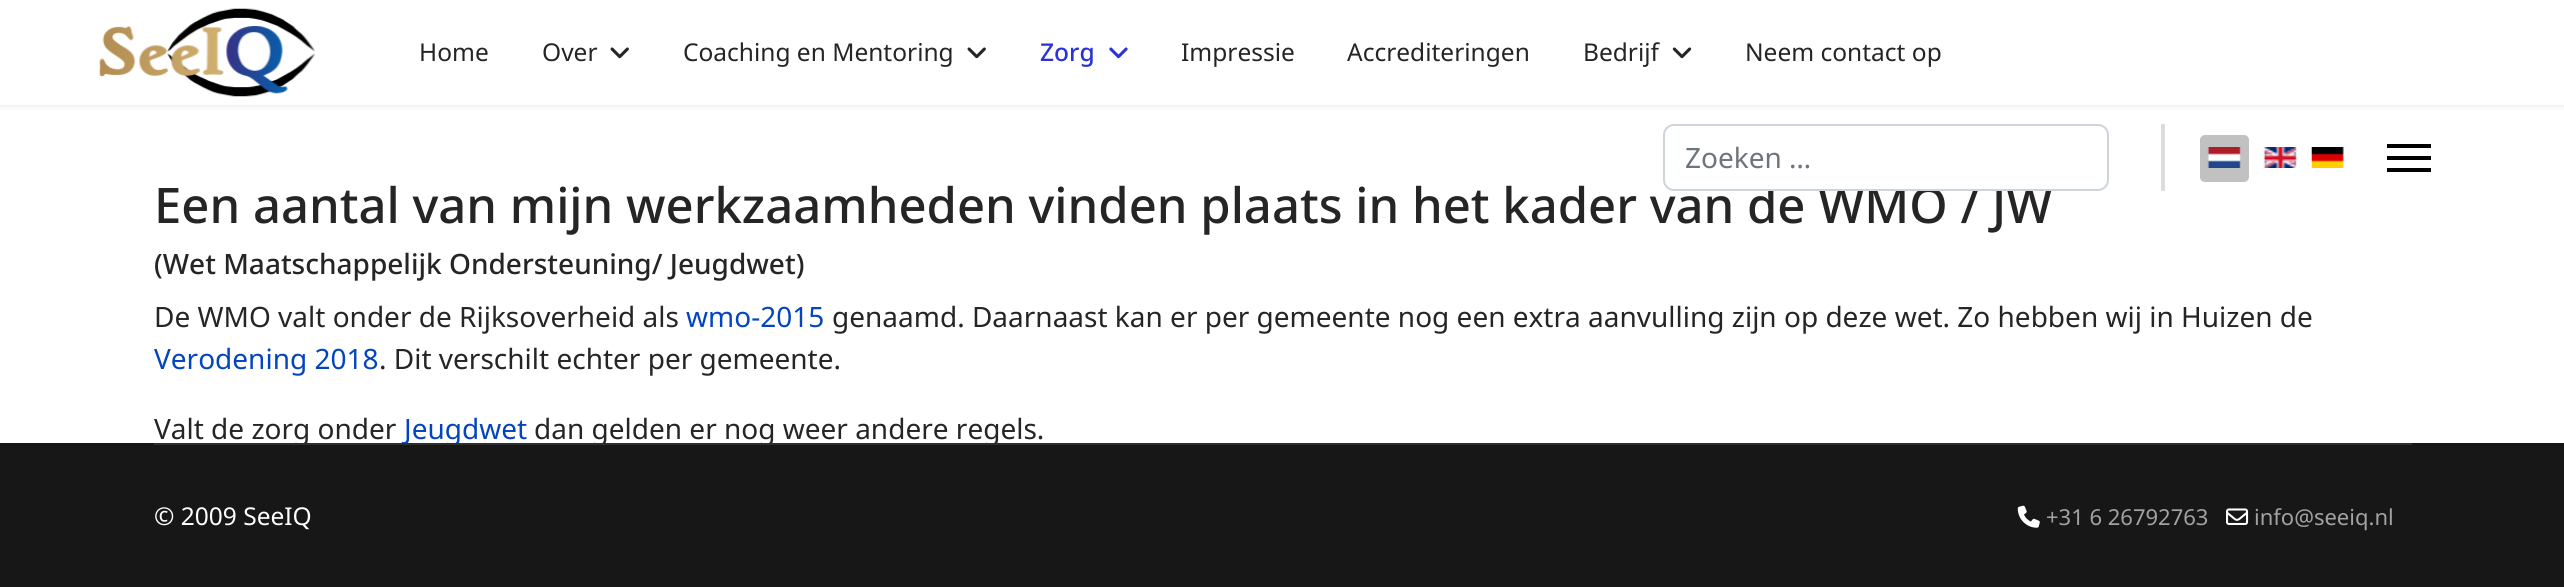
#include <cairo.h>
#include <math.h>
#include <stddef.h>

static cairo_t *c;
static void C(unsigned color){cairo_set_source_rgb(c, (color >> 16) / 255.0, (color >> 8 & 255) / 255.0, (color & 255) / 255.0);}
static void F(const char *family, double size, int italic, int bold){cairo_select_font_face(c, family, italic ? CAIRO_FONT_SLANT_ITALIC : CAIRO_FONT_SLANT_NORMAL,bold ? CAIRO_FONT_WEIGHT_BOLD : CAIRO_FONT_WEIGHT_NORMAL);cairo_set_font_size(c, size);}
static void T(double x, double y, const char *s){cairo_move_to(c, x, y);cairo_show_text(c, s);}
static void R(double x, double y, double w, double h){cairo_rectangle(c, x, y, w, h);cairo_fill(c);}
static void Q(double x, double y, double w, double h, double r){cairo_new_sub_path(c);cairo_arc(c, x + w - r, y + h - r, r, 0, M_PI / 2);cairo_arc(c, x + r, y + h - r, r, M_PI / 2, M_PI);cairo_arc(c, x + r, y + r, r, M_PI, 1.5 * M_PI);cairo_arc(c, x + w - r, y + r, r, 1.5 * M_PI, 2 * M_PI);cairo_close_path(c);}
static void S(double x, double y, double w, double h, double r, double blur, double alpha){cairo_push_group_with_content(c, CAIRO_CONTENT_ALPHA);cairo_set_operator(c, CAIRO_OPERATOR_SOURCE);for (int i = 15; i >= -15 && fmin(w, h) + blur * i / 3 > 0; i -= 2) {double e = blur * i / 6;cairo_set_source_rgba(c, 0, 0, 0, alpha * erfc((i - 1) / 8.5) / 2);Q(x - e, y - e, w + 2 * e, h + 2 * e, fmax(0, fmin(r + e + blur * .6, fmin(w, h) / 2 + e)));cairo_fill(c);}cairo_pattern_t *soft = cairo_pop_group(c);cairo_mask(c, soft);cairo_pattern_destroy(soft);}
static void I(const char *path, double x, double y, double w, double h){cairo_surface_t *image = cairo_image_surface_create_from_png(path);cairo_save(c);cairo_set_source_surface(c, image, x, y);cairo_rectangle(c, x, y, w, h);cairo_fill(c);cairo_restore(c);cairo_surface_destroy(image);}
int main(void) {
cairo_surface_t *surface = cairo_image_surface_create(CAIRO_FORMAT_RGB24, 2564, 587);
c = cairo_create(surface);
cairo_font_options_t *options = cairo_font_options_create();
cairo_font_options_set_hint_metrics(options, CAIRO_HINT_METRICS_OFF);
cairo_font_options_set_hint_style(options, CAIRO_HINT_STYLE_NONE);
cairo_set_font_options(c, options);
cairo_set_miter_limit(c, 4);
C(0xffffff);
cairo_paint(c);
C(0x000000);
S(0,0,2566,105,0,3.5,.1);
C(0xffffff);
R(0,0,2564,105);
I("1.png",99,8,216,89);
F("Noto Sans",24.5,0,0);
C(0x252525);
T(419,61,"Home");
T(542,61,"Over");
I("2.png",610,47,19,12);
T(683,61,"Coaching en Mentoring");
I("2.png",967,47,19,12);
F("Noto Sans Medium",24.5,0,0);
C(0x2b33d6);
T(1040,61,"Zorg");
I("3.png",1109,47,19,12);
F("Noto Sans",24.5,0,0);
C(0x252525);
T(1181,61,"Impressie");
T(1347,61,"Accrediteringen");
T(1583,61,"Bedrijf");
I("4.png",1672,47,20,12);
T(1745,61,"Neem contact op");
C(0xdcdcdc);
R(2161,124,4,67);
F("Noto Sans Medium",49,0,0);
C(0x252525);
T(154,223,"Een aantal van mijn werkzaamheden vinden plaats in het kader van de WMO / JW");
C(0xffffff);
Q(1664,125,444,65,10);
cairo_fill_preserve(c);
C(0xced4da);
cairo_stroke(c);
F("Noto Sans",28,0,0);
C(0x6c757d);
T(1685,168,"Zoeken …");
C(0xc1c1c1);
Q(2200,135,49,47,5);
cairo_fill(c);
I("5.png",2207,147,34,21);
I("6.png",2263,147,34,21);
I("7.png",2311,147,33,21);
C(0x000000);
R(2387,144,44,4);
R(2387,156,44,4);
R(2387,168,44,4);
F("Noto Sans Medium",28,0,0);
C(0x252525);
T(154,274,"(Wet Maatschappelijk Ondersteuning/ Jeugdwet)");
F("Noto Sans",28,0,0);
T(154,327,"De WMO valt onder de Rijksoverheid als");
C(0x0345bf);
T(686,327,"wmo-2015");
C(0x252525);
T(832,327,"genaamd. Daarnaast kan er per gemeente nog een extra aanvulling zijn op deze wet. Zo hebben wij in Huizen de");
C(0x0345bf);
T(154,369,"Verodening 2018");
C(0x252525);
T(379,369,". Dit verschilt echter per gemeente.");
T(154,439,"Valt de zorg onder");
C(0x0345bf);
T(404,439,"Jeugdwet");
C(0x252525);
T(534,439,"dan gelden er nog weer andere regels.");
C(0x171717);
R(0,443,2564,144);
C(0x2e2e2e);
R(154,443,2258,2);
F("Noto Sans",24.5,0,0);
C(0xffffff);
T(154,525,"© 2009 SeeIQ");
I("8.png",2017,505,23,23);
F("Noto Sans",22,0,0);
C(0xa2a2a2);
T(2046,525,"+31 6 26792763");
I("9.png",2226,508,23,17);
T(2254,525,"info@seeiq.nl");
cairo_surface_write_to_png(surface, "o.png");
cairo_font_options_destroy(options);
cairo_destroy(c);
cairo_surface_destroy(surface);
return 0;
}
